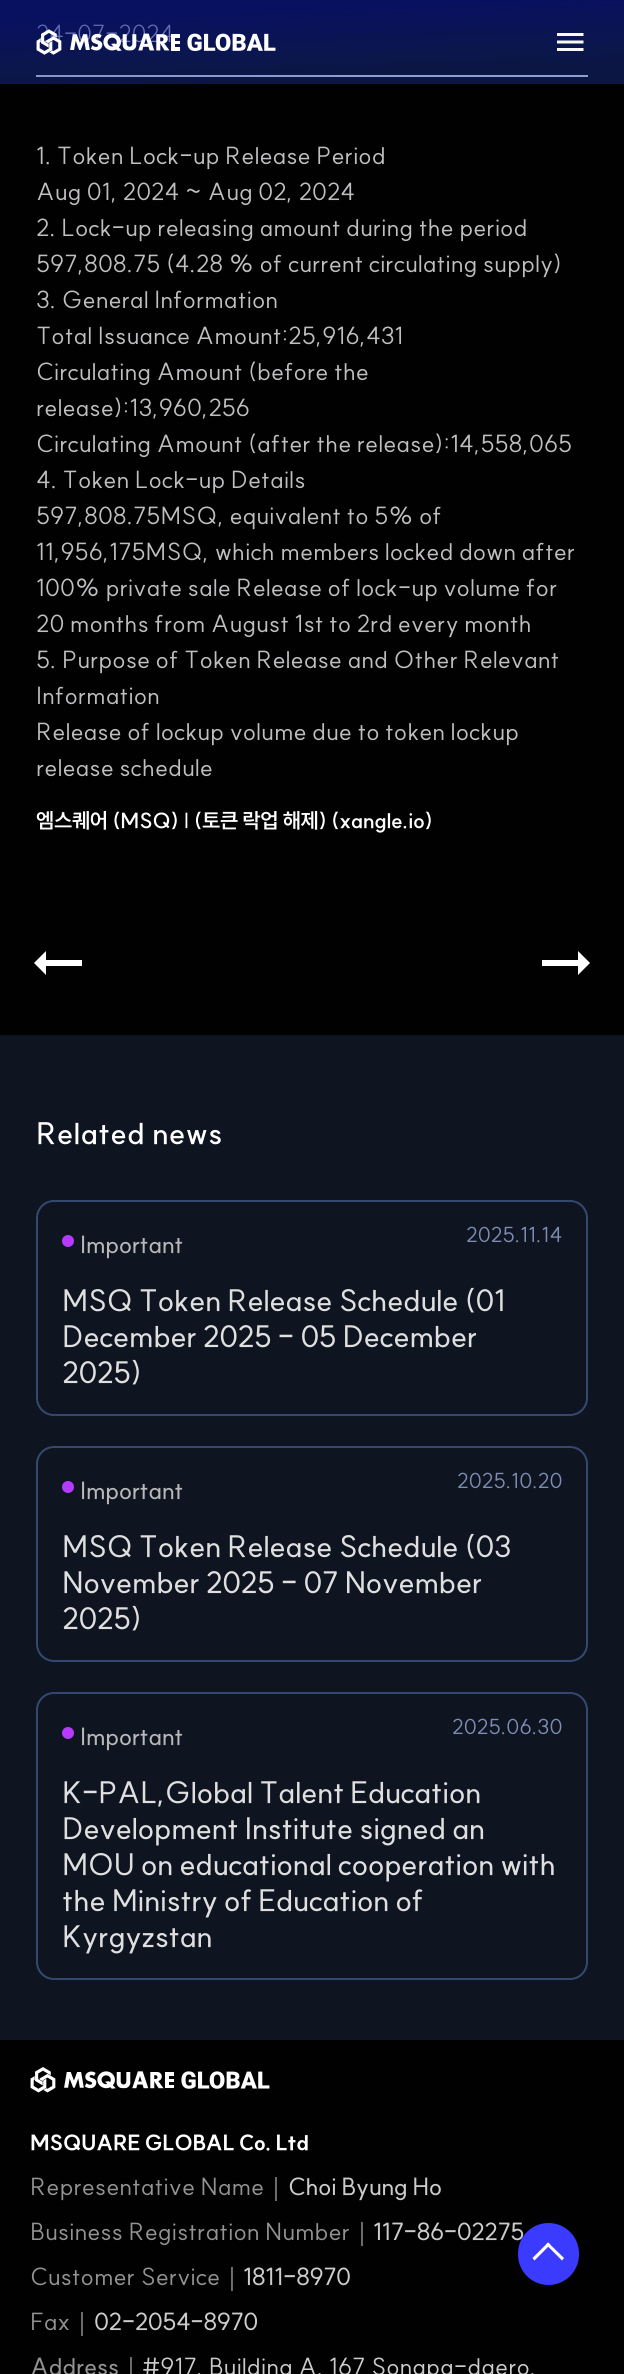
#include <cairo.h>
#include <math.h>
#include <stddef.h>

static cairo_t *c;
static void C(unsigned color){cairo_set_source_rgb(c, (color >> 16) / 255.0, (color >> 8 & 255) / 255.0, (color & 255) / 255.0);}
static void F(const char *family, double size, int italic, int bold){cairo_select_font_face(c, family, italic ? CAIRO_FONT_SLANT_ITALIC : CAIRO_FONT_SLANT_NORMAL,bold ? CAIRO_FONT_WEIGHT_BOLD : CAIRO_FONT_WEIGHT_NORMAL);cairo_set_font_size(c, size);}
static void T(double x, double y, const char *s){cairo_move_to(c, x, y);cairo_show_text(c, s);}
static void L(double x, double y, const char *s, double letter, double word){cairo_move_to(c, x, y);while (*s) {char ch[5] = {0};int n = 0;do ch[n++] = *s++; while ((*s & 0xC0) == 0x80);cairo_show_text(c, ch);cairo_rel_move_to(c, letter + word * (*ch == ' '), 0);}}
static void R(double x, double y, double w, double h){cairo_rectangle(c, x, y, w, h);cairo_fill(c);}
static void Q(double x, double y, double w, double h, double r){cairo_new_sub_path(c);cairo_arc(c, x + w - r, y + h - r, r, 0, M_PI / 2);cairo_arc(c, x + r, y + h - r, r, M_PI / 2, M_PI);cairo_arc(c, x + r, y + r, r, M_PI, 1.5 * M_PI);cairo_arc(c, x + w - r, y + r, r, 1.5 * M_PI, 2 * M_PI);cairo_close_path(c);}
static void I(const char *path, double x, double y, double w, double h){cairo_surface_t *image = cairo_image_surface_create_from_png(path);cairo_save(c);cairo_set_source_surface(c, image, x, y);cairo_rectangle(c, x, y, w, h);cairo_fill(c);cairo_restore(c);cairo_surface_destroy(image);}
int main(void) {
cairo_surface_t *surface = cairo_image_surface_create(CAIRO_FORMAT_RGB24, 624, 2374);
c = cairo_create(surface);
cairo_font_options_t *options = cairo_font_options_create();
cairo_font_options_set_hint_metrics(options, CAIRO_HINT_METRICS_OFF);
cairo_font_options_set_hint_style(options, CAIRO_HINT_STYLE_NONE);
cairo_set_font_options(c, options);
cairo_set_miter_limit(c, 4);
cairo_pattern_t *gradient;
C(0x010101);
cairo_paint(c);
F("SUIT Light",24,0,0);
C(0xcccccc);
T(36,42,"24-07-2024");
C(0xe1e1ee);
R(36,75,552,2);
gradient = cairo_pattern_create_linear(310,-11,314,95);
cairo_pattern_add_color_stop_rgba(gradient,.17,0.051,0.11,0.627,.6);
cairo_pattern_add_color_stop_rgba(gradient,.84,0.102,0.204,0.647,.4);
cairo_set_source(c,gradient);
cairo_pattern_destroy(gradient);
R(0,0,624,84);
I("1.png",36,29,240,26);
I("2.png",557,33,27,18);
F("SUIT",24,0,0);
C(0xc1bec2);
T(36,164,"1. Token Lock-up Release Period");
T(36,200,"Aug 01, 2024 ~ Aug 02, 2024");
T(36,236,"2. Lock-up releasing amount during the period");
T(36,272,"597,808.75 (4.28 % of current circulating supply)");
T(36,308,"3. General Information");
T(36,344,"Total Issuance Amount:25,916,431");
T(36,380,"Circulating Amount (before the");
T(36,416,"release):13,960,256");
T(36,452,"Circulating Amount (after the release):14,558,065");
T(36,488,"4. Token Lock-up Details");
T(36,524,"597,808.75MSQ, equivalent to 5% of");
T(36,560,"11,956,175MSQ, which members locked down after");
T(36,596,"100% private sale Release of lock-up volume for");
T(36,632,"20 months from August 1st to 2rd every month");
T(36,668,"5. Purpose of Token Release and Other Relevant");
T(36,704,"Information");
T(36,740,"Release of lockup volume due to token lockup");
T(36,776,"release schedule");
F("SUIT",21,0,1);
C(0xffffff);
L(36,828,"엠스퀘어 (MSQ) | (토큰 락업 해제) (xangle.io)",-.4,0);
cairo_new_path(c);
cairo_move_to(c,46,960);
cairo_line_to(c,82,960);
cairo_line_to(c,82,966);
cairo_line_to(c,46,966);
cairo_line_to(c,46,975);
cairo_line_to(c,34,963);
cairo_line_to(c,46,951);
cairo_close_path(c);
cairo_fill(c);
cairo_new_path(c);
cairo_move_to(c,578,960);
cairo_line_to(c,542,960);
cairo_line_to(c,542,966);
cairo_line_to(c,578,966);
cairo_line_to(c,578,975);
cairo_line_to(c,590,963);
cairo_line_to(c,578,951);
cairo_close_path(c);
cairo_fill(c);
C(0x0e1420);
R(0,1035,624,1005);
F("SUIT SemiBold",30,0,0);
C(0xffffff);
L(36,1144,"Related news",.1,0);
Q(37,1201,550,214,17);
C(0x344870);
cairo_stroke(c);
gradient = cairo_pattern_create_linear(72,1234,63,1247);
cairo_pattern_add_color_stop_rgba(gradient,.88,0.71,0.231,1,1);
cairo_pattern_add_color_stop_rgba(gradient,.88,0.231,0.231,1,1);
cairo_pattern_add_color_stop_rgba(gradient,.88,0.569,0.231,1,1);
cairo_set_source(c,gradient);
cairo_pattern_destroy(gradient);
cairo_arc(c,68,1241,6,0,2 * M_PI);
cairo_fill(c);
F("SUIT Medium",24,0,0);
C(0xb9b9b9);
L(80,1253,"Important",-.5,0);
F("SUIT",21,0,0);
C(0x7d8db4);
T(466,1242,"2025.11.14");
F("SUIT Medium",30,0,0);
C(0xdfdfdf);
L(62,1311,"MSQ Token Release Schedule (01",-.5,0);
L(62,1347,"December 2025 - 05 December",-.5,0);
L(62,1383,"2025)",-.5,0);
Q(37,1447,550,214,17);
C(0x344870);
cairo_stroke(c);
gradient = cairo_pattern_create_linear(72,1480,63,1493);
cairo_pattern_add_color_stop_rgba(gradient,.88,0.71,0.231,1,1);
cairo_pattern_add_color_stop_rgba(gradient,.88,0.231,0.231,1,1);
cairo_pattern_add_color_stop_rgba(gradient,.88,0.569,0.231,1,1);
cairo_set_source(c,gradient);
cairo_pattern_destroy(gradient);
cairo_arc(c,68,1487,6,0,2 * M_PI);
cairo_fill(c);
F("SUIT Medium",24,0,0);
C(0xb9b9b9);
L(80,1499,"Important",-.5,0);
F("SUIT",21,0,0);
C(0x7d8db4);
T(457,1488,"2025.10.20");
F("SUIT Medium",30,0,0);
C(0xdfdfdf);
L(62,1557,"MSQ Token Release Schedule (03",-.5,0);
L(62,1593,"November 2025 - 07 November",-.5,0);
L(62,1629,"2025)",-.5,0);
Q(37,1693,550,286,17);
C(0x344870);
cairo_stroke(c);
gradient = cairo_pattern_create_linear(72,1726,63,1739);
cairo_pattern_add_color_stop_rgba(gradient,.88,0.71,0.231,1,1);
cairo_pattern_add_color_stop_rgba(gradient,.88,0.231,0.231,1,1);
cairo_pattern_add_color_stop_rgba(gradient,.88,0.569,0.231,1,1);
cairo_set_source(c,gradient);
cairo_pattern_destroy(gradient);
cairo_arc(c,68,1733,6,0,2 * M_PI);
cairo_fill(c);
F("SUIT Medium",24,0,0);
C(0xb9b9b9);
L(80,1745,"Important",-.5,0);
F("SUIT",21,0,0);
C(0x7d8db4);
T(452,1734,"2025.06.30");
F("SUIT Medium",30,0,0);
C(0xdfdfdf);
L(62,1803,"K-PAL,Global Talent Education",-.5,0);
L(62,1839,"Development Institute signed an",-.5,0);
L(62,1875,"MOU on educational cooperation with",-.5,0);
L(62,1911,"the Ministry of Education of",-.5,0);
L(62,1947,"Kyrgyzstan",-.5,0);
I("3.png",30,2067,240,26);
F("SUIT ExtraBold",21,0,0);
C(0xffffff);
L(30,2150,"MSQUARE GLOBAL Co. Ltd",-.4,0);
F("SUIT",24,0,0);
C(0x949393);
T(30,2195,"Representative Name");
F("WenQuanYi Zen Hei Medium",24,0,0);
T(264,2195,"｜");
F("SUIT Medium",24,0,0);
C(0xcccccc);
L(288,2195,"Choi Byung Ho",-.5,0);
F("SUIT",24,0,0);
C(0x949393);
T(30,2240,"Business Registration Number");
F("WenQuanYi Zen Hei Medium",24,0,0);
T(350,2240,"｜");
F("SUIT Medium",24,0,0);
C(0xcccccc);
L(373,2240,"117-86-02275",-.5,0);
F("SUIT",24,0,0);
C(0x949393);
T(30,2285,"Customer Service");
F("WenQuanYi Zen Hei Medium",24,0,0);
T(220,2285,"｜");
F("SUIT Medium",24,0,0);
C(0xcccccc);
L(243,2285,"1811-8970",-.5,0);
F("SUIT",24,0,0);
C(0x949393);
T(30,2330,"Fax");
F("WenQuanYi Zen Hei Medium",24,0,0);
T(70,2330,"｜");
F("SUIT Medium",24,0,0);
C(0xcccccc);
L(94,2330,"02-2054-8970",-.5,0);
C(0x949393);
L(30,2375,"Address",-.4,0);
F("WenQuanYi Zen Hei Medium",24,0,0);
L(119,2375,"｜",-.4,0);
F("SUIT",24,0,0);
C(0xcccccc);
T(142,2375,"#917, Building A, 167 Songpa-daero,");
C(0x3b3bff);
Q(518,2223,61,62,30.5);
cairo_fill(c);
C(0xffffff);
cairo_new_path(c);
cairo_move_to(c,548,2242.5);
cairo_line_to(c,564,2258);
cairo_line_to(c,562,2260.5);
cairo_line_to(c,546,2244.5);
cairo_close_path(c);
cairo_fill(c);
cairo_new_path(c);
cairo_move_to(c,548,2242.5);
cairo_line_to(c,550.5,2244.5);
cairo_line_to(c,534.5,2260.5);
cairo_line_to(c,532.5,2258);
cairo_close_path(c);
cairo_fill(c);
cairo_surface_write_to_png(surface, "o.png");
cairo_font_options_destroy(options);
cairo_destroy(c);
cairo_surface_destroy(surface);
return 0;
}
